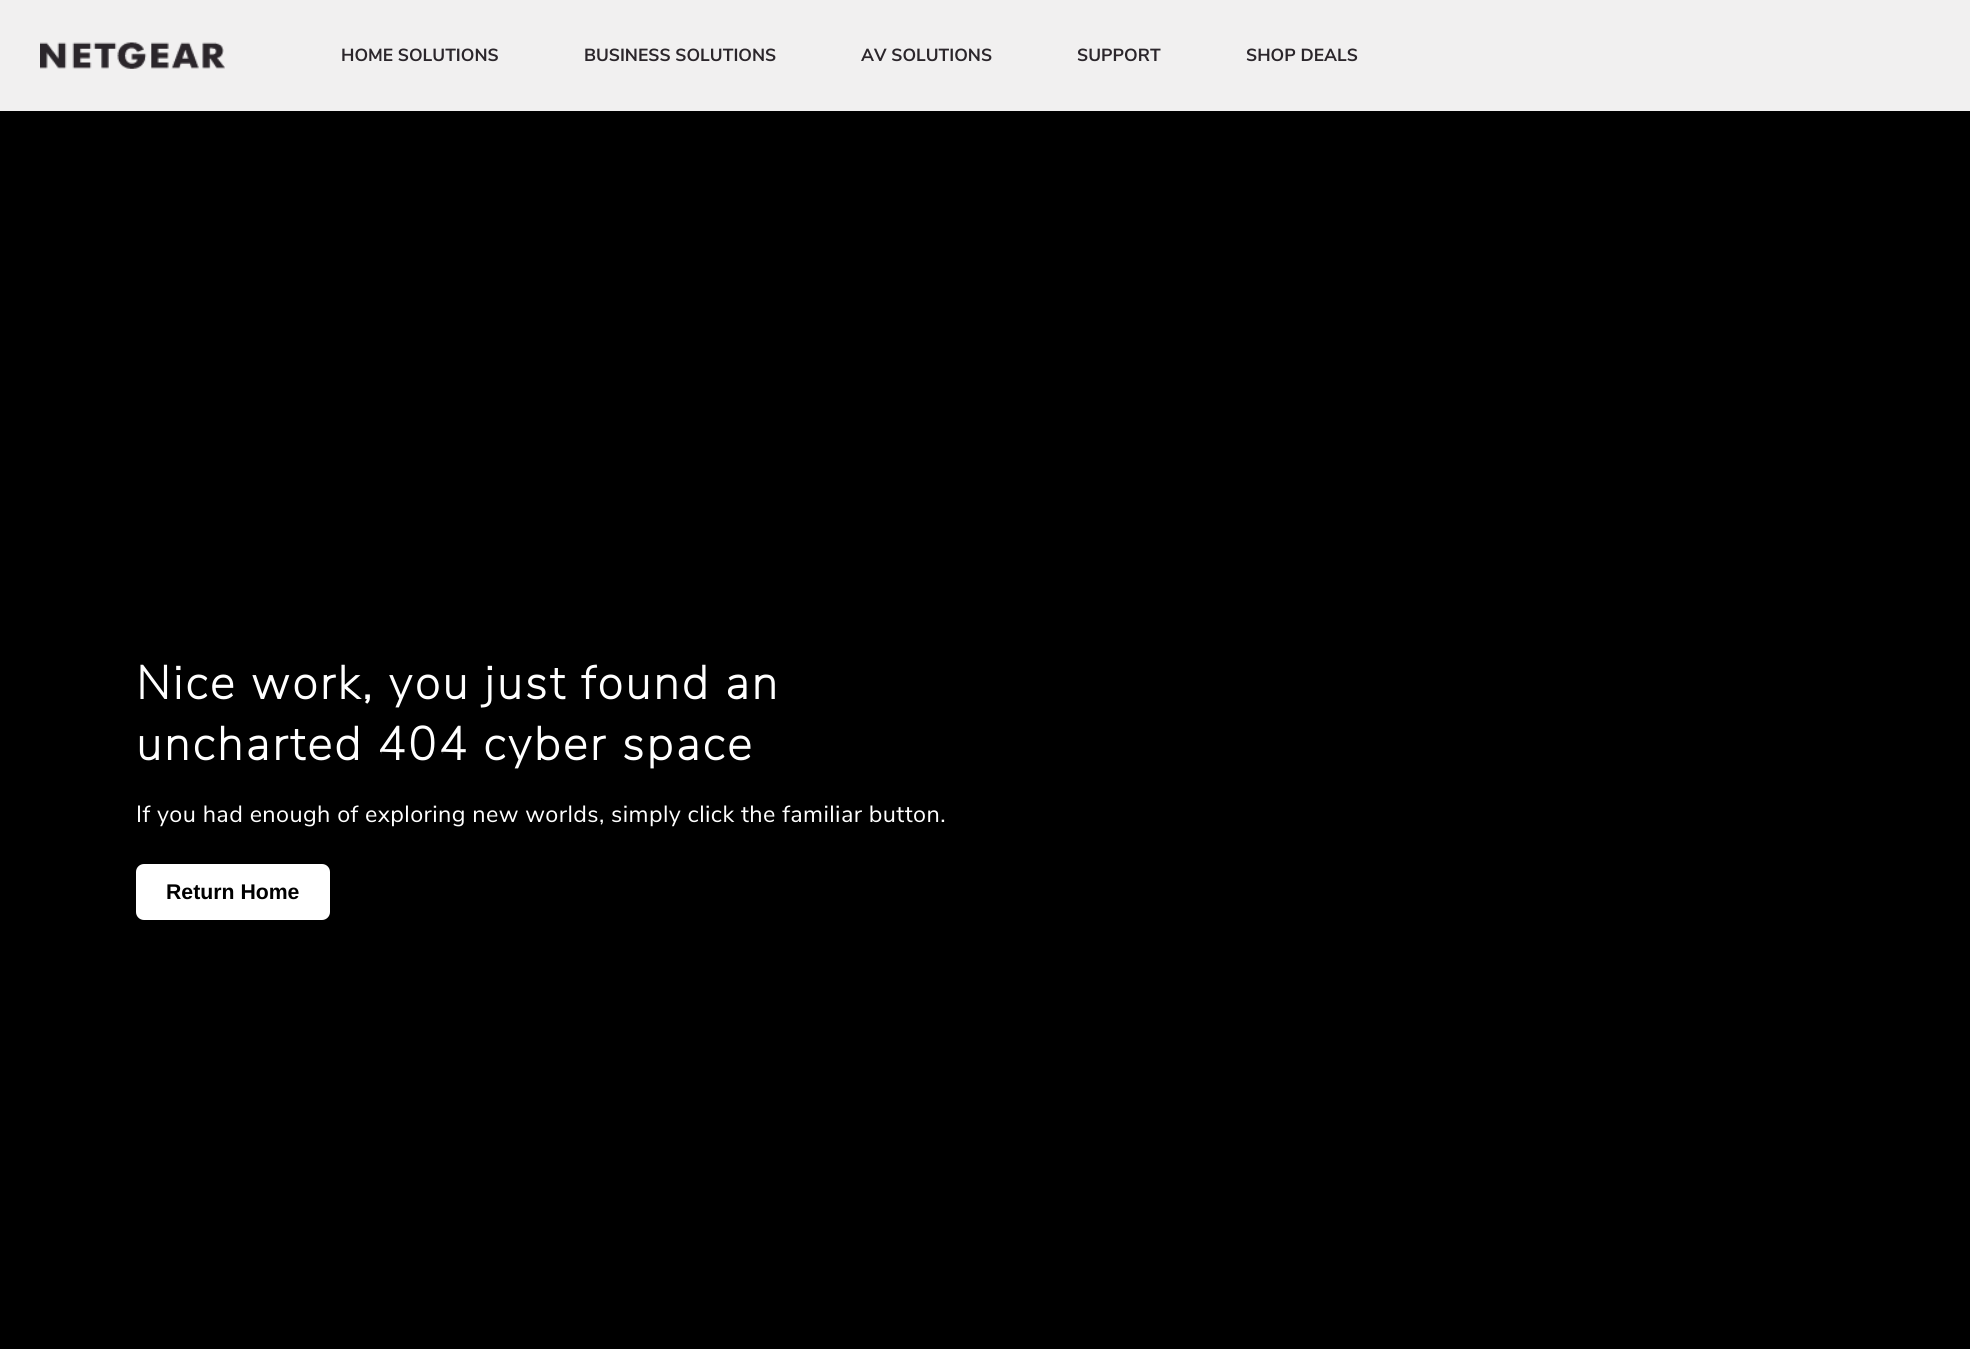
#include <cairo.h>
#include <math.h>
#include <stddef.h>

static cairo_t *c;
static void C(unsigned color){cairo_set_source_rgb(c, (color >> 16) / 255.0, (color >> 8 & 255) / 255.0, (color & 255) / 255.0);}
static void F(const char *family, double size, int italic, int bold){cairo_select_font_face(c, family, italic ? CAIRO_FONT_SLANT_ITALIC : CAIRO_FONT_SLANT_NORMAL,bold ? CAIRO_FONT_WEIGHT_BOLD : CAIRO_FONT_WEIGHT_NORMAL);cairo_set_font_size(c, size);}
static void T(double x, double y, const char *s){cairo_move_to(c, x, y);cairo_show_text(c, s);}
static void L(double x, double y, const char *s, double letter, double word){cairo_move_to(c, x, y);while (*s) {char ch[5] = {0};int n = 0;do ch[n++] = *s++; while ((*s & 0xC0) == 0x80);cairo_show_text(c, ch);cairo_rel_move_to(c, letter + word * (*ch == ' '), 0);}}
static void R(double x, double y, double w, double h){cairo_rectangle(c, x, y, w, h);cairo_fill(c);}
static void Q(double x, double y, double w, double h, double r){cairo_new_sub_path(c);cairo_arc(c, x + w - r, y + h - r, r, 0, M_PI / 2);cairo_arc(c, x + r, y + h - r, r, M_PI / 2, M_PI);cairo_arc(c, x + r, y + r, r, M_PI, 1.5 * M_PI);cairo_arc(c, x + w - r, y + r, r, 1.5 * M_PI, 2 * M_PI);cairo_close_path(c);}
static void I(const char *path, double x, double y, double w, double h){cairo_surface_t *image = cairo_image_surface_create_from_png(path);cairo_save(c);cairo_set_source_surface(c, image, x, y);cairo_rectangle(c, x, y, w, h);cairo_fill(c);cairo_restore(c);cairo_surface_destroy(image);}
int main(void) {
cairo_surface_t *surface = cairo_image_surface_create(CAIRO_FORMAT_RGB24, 1970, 1349);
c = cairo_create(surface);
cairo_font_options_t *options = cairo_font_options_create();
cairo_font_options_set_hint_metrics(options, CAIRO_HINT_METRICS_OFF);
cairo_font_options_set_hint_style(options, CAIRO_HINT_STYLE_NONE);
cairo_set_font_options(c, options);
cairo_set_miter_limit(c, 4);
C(0x000000);
cairo_paint(c);
C(0xf1f0f0);
R(0,0,1970,111);
I("1.png",40,42,185,27);
F("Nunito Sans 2",17.5,0,1);
C(0x2b262b);
T(341,61,"HOME SOLUTIONS");
T(584,61,"BUSINESS SOLUTIONS");
T(861,61,"AV SOLUTIONS");
T(1077,61,"SUPPORT");
T(1246,61,"SHOP DEALS");
F("Nunito Sans",46.75,0,1);
C(0xffffff);
L(136,699,"Nice work, you just found an",2.55,0);
L(136,760,"uncharted 404 cyber space",2.55,0);
F("Nunito Sans",23.4,0,0);
L(136,822,"If you had enough of exploring new worlds, simply click the familiar button.",.4,0);
Q(136,864,194,56,8);
cairo_fill(c);
F("Liberation Sans",21.25,0,1);
C(0x000000);
T(166,899,"Return Home");
cairo_surface_write_to_png(surface, "o.png");
cairo_font_options_destroy(options);
cairo_destroy(c);
cairo_surface_destroy(surface);
return 0;
}
